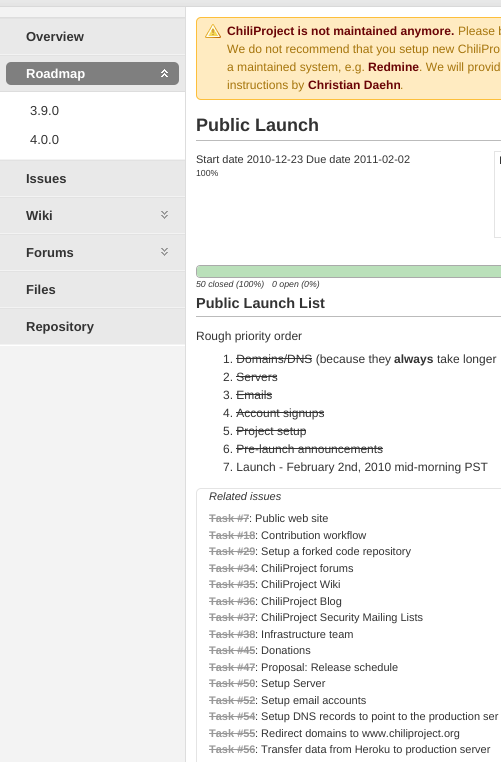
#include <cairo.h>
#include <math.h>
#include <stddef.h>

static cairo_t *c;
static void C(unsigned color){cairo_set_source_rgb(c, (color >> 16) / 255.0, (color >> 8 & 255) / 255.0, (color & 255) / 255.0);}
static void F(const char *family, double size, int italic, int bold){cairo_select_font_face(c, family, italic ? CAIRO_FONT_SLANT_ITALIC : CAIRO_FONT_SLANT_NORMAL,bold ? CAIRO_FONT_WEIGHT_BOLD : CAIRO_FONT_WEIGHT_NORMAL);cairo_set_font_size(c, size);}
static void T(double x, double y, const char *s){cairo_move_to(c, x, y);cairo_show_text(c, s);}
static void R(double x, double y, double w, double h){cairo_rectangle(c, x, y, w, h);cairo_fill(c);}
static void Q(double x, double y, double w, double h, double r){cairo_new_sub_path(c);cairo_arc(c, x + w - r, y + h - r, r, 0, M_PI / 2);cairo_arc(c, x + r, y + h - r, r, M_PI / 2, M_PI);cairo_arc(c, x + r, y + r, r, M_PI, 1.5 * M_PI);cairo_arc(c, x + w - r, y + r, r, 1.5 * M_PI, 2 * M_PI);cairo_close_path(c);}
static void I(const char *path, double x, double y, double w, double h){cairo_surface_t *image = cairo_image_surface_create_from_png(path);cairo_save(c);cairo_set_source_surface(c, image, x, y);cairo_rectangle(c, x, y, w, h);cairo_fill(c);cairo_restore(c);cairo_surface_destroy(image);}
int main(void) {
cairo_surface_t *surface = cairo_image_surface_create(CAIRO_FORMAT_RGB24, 501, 762);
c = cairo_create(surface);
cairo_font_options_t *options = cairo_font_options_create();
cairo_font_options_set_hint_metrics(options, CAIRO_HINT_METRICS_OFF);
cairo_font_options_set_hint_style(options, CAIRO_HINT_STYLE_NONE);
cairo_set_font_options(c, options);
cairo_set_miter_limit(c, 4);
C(0xf3f3f3);
cairo_paint(c);
I("1.png",0,0,501,7);
C(0xdddddd);
R(0,17,185,1);
C(0xffffff);
R(0,345,185,1);
C(0xe9e9e9);
R(0,19,185,35);
C(0xe2e2e2);
R(0,18,185,1);
F("Liberation Sans",13,0,1);
C(0x333333);
T(26,41,"Overview");
C(0xe9e9e9);
R(0,56,185,35);
C(0xe2e2e2);
R(0,55,185,1);
C(0x7f7f7f);
Q(6,62,173,23,5);
cairo_fill(c);
C(0xffffff);
T(26,78,"Roadmap");
I("2.png",161,69,7,8);
R(0,92,185,67);
C(0xdddddd);
R(0,91,185,1);
F("Liberation Sans",13,0,0);
C(0x333333);
T(30,115,"3.9.0");
T(30,144,"4.0.0");
C(0xe9e9e9);
R(0,161,185,35);
C(0xe2e2e2);
R(0,160,185,1);
F("Liberation Sans",13,0,1);
C(0x333333);
T(26,183,"Issues");
C(0xe9e9e9);
R(0,198,185,35);
C(0xe2e2e2);
R(0,197,185,1);
C(0x333333);
T(26,220,"Wiki");
I("3.png",161,211,7,8);
C(0xe9e9e9);
R(0,235,185,35);
C(0xe2e2e2);
R(0,234,185,1);
C(0x333333);
T(26,257,"Forums");
I("3.png",161,248,7,8);
C(0xe9e9e9);
R(0,272,185,35);
C(0xe2e2e2);
R(0,271,185,1);
C(0x333333);
T(26,294,"Files");
C(0xe9e9e9);
R(0,309,185,35);
C(0xe2e2e2);
R(0,308,185,1);
C(0x333333);
T(26,331,"Repository");
C(0xffffff);
R(186,7,315,755);
C(0xdddddd);
R(185,7,1,755);
C(0xffebc1);
Q(196,17,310,83,5);
cairo_fill(c);
I("4.png",205,24,16,14);
Q(196.5,17.5,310,82,4.5);
C(0xfdbf3b);
cairo_set_line_width(c,1);
cairo_stroke(c);
F("Liberation Sans",12.1,0,1);
C(0x6a0406);
T(227,35,"ChiliProject is not maintained anymore.");
F("Liberation Sans",12.1,0,0);
C(0xa6750c);
T(458,35,"Please b");
T(227,53,"We do not recommend that you setup new ChiliPro");
T(227,71,"a maintained system, e.g.");
F("Liberation Sans",12.1,0,1);
C(0x6a0406);
T(368,71,"Redmine");
F("Liberation Sans",12.1,0,0);
C(0xa6750c);
T(419,71,". We will provid");
T(227,89,"instructions by");
F("Liberation Sans",12.1,0,1);
C(0x6a0406);
T(308,89,"Christian Daehn");
F("Liberation Sans",12.1,0,0);
C(0xa6750c);
T(400,89,".");
C(0xbbbbbb);
R(196,140,305,1);
F("Liberation Sans",18,0,1);
C(0x333333);
T(196,131,"Public Launch");
F("Liberation Sans",11,0,0);
T(196,163,"Start date 2010-12-23 Due date 2011-02-02");
F("Liberation Sans",8.75,0,0);
T(196,176,"100%");
Q(196.5,265.5,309,12,3.5);
C(0xaaaaaa);
cairo_stroke(c);
cairo_save(c);
Q(197,266,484,11,3);
cairo_clip(c);
C(0xbae0ba);
cairo_new_path(c);
cairo_move_to(c,201,265);
cairo_line_to(c,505,265);
cairo_line_to(c,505,278);
cairo_line_to(c,201,278);
cairo_curve_to(c,199,278,197,276,197,274);
cairo_line_to(c,197,269);
cairo_curve_to(c,197,267,199,265,201,265);
cairo_close_path(c);
cairo_fill(c);
cairo_restore(c);
F("Liberation Sans",8.75,1,0);
C(0x333333);
T(196,287,"50 closed (100%)");
T(272,287,"0 open (0%)");
C(0xbbbbbb);
R(196,316,305,1);
F("Liberation Sans",14.5,0,1);
C(0x333333);
T(196,308,"Public Launch List");
F("Liberation Sans",12,0,0);
T(196,340,"Rough priority order");
T(223,363,"1. Domains/DNS (because they");
F("Liberation Sans",12,0,1);
T(394,363,"always");
F("Liberation Sans",12,0,0);
T(437,363,"take longer");
R(236,358,76,1);
T(223,381,"2. Servers");
R(236,376,41,1);
T(223,399,"3. Emails");
R(236,394,36,1);
T(223,417,"4. Account signups");
R(236,412,88,1);
T(223,435,"5. Project setup");
R(236,430,70,1);
T(223,453,"6. Pre-launch announcements");
R(236,448,147,1);
T(223,471,"7. Launch - February 2nd, 2010 mid-morning PST");
Q(196.5,488.5,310,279,4.5);
C(0xe4e4e4);
cairo_stroke(c);
F("Liberation Sans",11,1,0);
C(0x333333);
T(209,500,"Related issues");
F("Liberation Sans",11,0,1);
C(0x999999);
T(209,522,"Task #7");
R(209,518,40,1);
F("Liberation Sans",11,0,0);
C(0x333333);
T(249,522,": Public web site");
F("Liberation Sans",11,0,1);
C(0x999999);
T(209,539,"Task #18");
R(209,535,46,1);
F("Liberation Sans",11,0,0);
C(0x333333);
T(255,539,": Contribution workflow");
F("Liberation Sans",11,0,1);
C(0x999999);
T(209,555,"Task #29");
R(209,551,46,1);
F("Liberation Sans",11,0,0);
C(0x333333);
T(255,555,": Setup a forked code repository");
F("Liberation Sans",11,0,1);
C(0x999999);
T(209,572,"Task #34");
R(209,568,46,1);
F("Liberation Sans",11,0,0);
C(0x333333);
T(255,572,": ChiliProject forums");
F("Liberation Sans",11,0,1);
C(0x999999);
T(209,588,"Task #35");
R(209,584,46,1);
F("Liberation Sans",11,0,0);
C(0x333333);
T(255,588,": ChiliProject Wiki");
F("Liberation Sans",11,0,1);
C(0x999999);
T(209,605,"Task #36");
R(209,601,46,1);
F("Liberation Sans",11,0,0);
C(0x333333);
T(255,605,": ChiliProject Blog");
F("Liberation Sans",11,0,1);
C(0x999999);
T(209,621,"Task #37");
R(209,617,46,1);
F("Liberation Sans",11,0,0);
C(0x333333);
T(255,621,": ChiliProject Security Mailing Lists");
F("Liberation Sans",11,0,1);
C(0x999999);
T(209,638,"Task #38");
R(209,634,46,1);
F("Liberation Sans",11,0,0);
C(0x333333);
T(255,638,": Infrastructure team");
F("Liberation Sans",11,0,1);
C(0x999999);
T(209,654,"Task #45");
R(209,650,46,1);
F("Liberation Sans",11,0,0);
C(0x333333);
T(255,654,": Donations");
F("Liberation Sans",11,0,1);
C(0x999999);
T(209,671,"Task #47");
R(209,667,46,1);
F("Liberation Sans",11,0,0);
C(0x333333);
T(255,671,": Proposal: Release schedule");
F("Liberation Sans",11,0,1);
C(0x999999);
T(209,687,"Task #50");
R(209,683,46,1);
F("Liberation Sans",11,0,0);
C(0x333333);
T(255,687,": Setup Server");
F("Liberation Sans",11,0,1);
C(0x999999);
T(209,704,"Task #52");
R(209,700,46,1);
F("Liberation Sans",11,0,0);
C(0x333333);
T(255,704,": Setup email accounts");
F("Liberation Sans",11,0,1);
C(0x999999);
T(209,720,"Task #54");
R(209,716,46,1);
F("Liberation Sans",11,0,0);
C(0x333333);
T(255,720,": Setup DNS records to point to the production ser");
F("Liberation Sans",11,0,1);
C(0x999999);
T(209,737,"Task #55");
R(209,733,46,1);
F("Liberation Sans",11,0,0);
C(0x333333);
T(255,737,": Redirect domains to www.chiliproject.org");
F("Liberation Sans",11,0,1);
C(0x999999);
T(209,753,"Task #56");
R(209,749,46,1);
F("Liberation Sans",11,0,0);
C(0x333333);
T(255,753,": Transfer data from Heroku to production server");
cairo_rectangle(c,494.5,151.5,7,86);
C(0xe4e4e4);
cairo_stroke(c);
C(0x333333);
T(499,164,"I");
cairo_surface_write_to_png(surface, "o.png");
cairo_font_options_destroy(options);
cairo_destroy(c);
cairo_surface_destroy(surface);
return 0;
}
